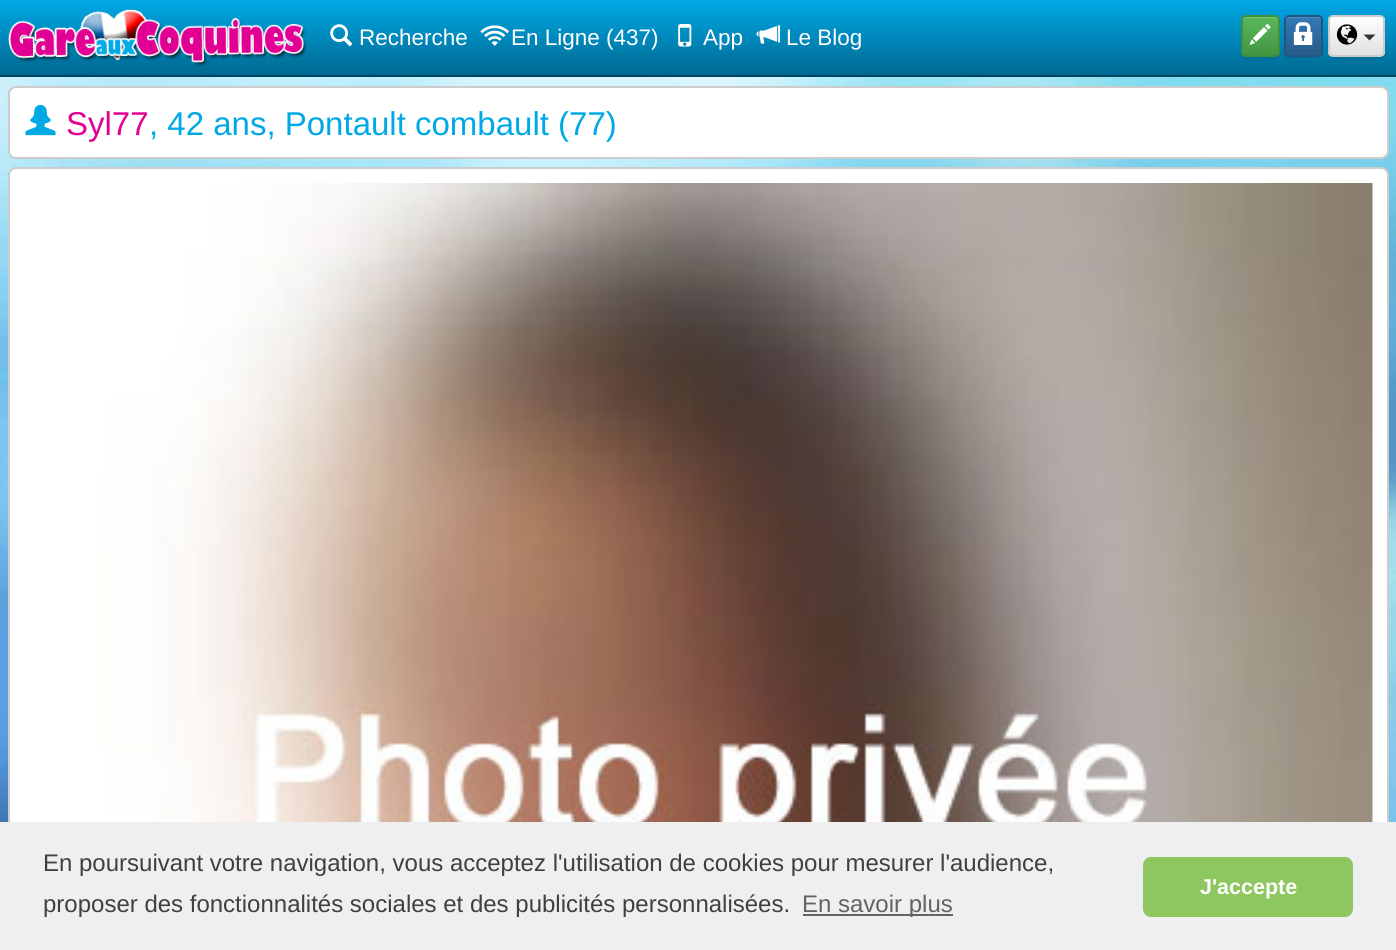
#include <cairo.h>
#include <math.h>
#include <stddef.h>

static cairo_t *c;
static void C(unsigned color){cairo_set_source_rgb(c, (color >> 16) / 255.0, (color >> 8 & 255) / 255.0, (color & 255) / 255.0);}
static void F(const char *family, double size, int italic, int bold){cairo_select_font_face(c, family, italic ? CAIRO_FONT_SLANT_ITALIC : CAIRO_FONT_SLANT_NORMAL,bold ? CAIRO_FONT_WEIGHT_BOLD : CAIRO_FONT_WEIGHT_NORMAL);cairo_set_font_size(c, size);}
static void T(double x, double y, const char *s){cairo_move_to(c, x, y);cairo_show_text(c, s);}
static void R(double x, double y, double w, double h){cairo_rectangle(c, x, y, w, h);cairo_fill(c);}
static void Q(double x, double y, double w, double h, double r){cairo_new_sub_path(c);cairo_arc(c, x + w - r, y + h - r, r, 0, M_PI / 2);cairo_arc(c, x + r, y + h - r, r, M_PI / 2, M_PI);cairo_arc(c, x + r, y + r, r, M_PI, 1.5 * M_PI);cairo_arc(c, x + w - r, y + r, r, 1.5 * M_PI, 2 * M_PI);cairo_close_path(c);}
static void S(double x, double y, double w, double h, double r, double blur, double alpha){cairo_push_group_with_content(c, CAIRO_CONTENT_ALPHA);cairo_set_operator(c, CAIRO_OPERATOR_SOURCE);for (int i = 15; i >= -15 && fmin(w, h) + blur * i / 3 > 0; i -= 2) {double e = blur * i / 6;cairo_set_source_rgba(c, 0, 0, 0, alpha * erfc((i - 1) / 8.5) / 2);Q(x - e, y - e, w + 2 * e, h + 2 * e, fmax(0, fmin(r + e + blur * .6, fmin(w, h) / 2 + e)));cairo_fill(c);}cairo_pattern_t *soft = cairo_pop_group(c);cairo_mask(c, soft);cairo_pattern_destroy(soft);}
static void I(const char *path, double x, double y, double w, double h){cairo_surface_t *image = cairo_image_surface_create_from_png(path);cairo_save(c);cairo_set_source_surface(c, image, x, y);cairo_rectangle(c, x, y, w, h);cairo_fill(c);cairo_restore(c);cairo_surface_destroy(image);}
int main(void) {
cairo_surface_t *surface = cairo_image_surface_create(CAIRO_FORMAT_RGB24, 1396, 950);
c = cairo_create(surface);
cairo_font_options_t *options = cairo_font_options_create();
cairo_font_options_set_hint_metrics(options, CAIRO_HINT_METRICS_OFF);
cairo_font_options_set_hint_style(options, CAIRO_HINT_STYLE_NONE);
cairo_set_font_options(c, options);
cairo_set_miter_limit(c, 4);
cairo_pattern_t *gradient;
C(0xffffff);
cairo_paint(c);
I("1.png",0,77,1396,745);
gradient = cairo_pattern_create_linear(698,0,698,75);
cairo_pattern_add_color_stop_rgba(gradient,0,0,0.659,0.902,1);
cairo_pattern_add_color_stop_rgba(gradient,1,0,0.412,0.569,1);
cairo_set_source(c,gradient);
cairo_pattern_destroy(gradient);
R(0,0,1396,75);
C(0x004560);
R(0,75,1396,2);
I("2.png",8,9,299,58);
I("3.png",330,24,23,23);
F("Liberation Sans",22.5,0,0);
C(0xffffff);
T(359,45,"Recherche");
I("4.png",480,25,30,21);
T(511,45,"En Ligne (437)");
I("5.png",678,24,14,23);
T(703,45,"App");
I("6.png",756,25,24,19);
T(786,45,"Le Blog");
C(0x000000);
S(1241,17,39,42,5,1,.07);
cairo_save(c);
Q(1241,15,39,42,5);
cairo_clip(c);
gradient = cairo_pattern_create_linear(1260,16,1260,56);
cairo_pattern_add_color_stop_rgba(gradient,0,0.361,0.722,0.361,1);
cairo_pattern_add_color_stop_rgba(gradient,1,0.255,0.588,0.255,1);
cairo_set_source(c,gradient);
cairo_pattern_destroy(gradient);
R(1241,17,39,39);
cairo_restore(c);
C(0x74c274);
cairo_new_path(c);
cairo_move_to(c,1245,18);
cairo_line_to(c,1275,18);
cairo_curve_to(c,1277,18,1278,19,1278,21);
cairo_curve_to(c,1278,16,1274,17,1270,17);
cairo_line_to(c,1250,17);
cairo_curve_to(c,1246,17,1242,16,1242,21);
cairo_curve_to(c,1242,19,1243,18,1245,18);
cairo_close_path(c);
cairo_fill(c);
Q(1242,16,37,40,4);
C(0x3e8f3e);
cairo_stroke(c);
I("7.png",1249,24,22,21);
C(0x000000);
S(1284,17,39,42,5,1,.07);
cairo_save(c);
Q(1284,15,39,42,5);
cairo_clip(c);
gradient = cairo_pattern_create_linear(1304,16,1304,56);
cairo_pattern_add_color_stop_rgba(gradient,0,0.2,0.478,0.718,1);
cairo_pattern_add_color_stop_rgba(gradient,1,0.149,0.353,0.533,1);
cairo_set_source(c,gradient);
cairo_pattern_destroy(gradient);
R(1284,17,39,39);
cairo_restore(c);
C(0x528dc0);
cairo_new_path(c);
cairo_move_to(c,1288,18);
cairo_line_to(c,1318,18);
cairo_curve_to(c,1320,18,1322,19,1322,21);
cairo_curve_to(c,1322,16,1318,17,1314,17);
cairo_line_to(c,1294,17);
cairo_curve_to(c,1290,17,1286,16,1286,21);
cairo_curve_to(c,1286,19,1287,18,1288,18);
cairo_close_path(c);
cairo_fill(c);
Q(1285,16,37,40,4);
C(0x245580);
cairo_stroke(c);
I("8.png",1293,22,20,23);
C(0x000000);
S(1328,17,57,42,5,1,.07);
cairo_save(c);
Q(1328,15,57,42,5);
cairo_clip(c);
gradient = cairo_pattern_create_linear(1356,16,1356,56);
cairo_pattern_add_color_stop_rgba(gradient,0,1,1,1,1);
cairo_pattern_add_color_stop_rgba(gradient,1,0.878,0.878,0.878,1);
cairo_set_source(c,gradient);
cairo_pattern_destroy(gradient);
R(1328,17,57,39);
cairo_restore(c);
Q(1329,16,55,40,4);
C(0xcccccc);
cairo_stroke(c);
I("9.png",1336,24,22,21);
C(0x333333);
cairo_new_path(c);
cairo_move_to(c,1363.5,34.5);
cairo_line_to(c,1375.5,34.5);
cairo_line_to(c,1369.5,40.5);
cairo_close_path(c);
cairo_fill(c);
C(0xffffff);
Q(9,87,1379,71,7);
cairo_fill_preserve(c);
C(0xcccccc);
cairo_stroke(c);
I("10.png",25,104,31,32);
F("Liberation Sans",33,0,0);
C(0xe20095);
T(66,135,"Syl77");
C(0x00a8e6);
T(149,135,", 42 ans, Pontault combault (77)");
C(0xffffff);
Q(9,168,1379,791,7);
cairo_fill_preserve(c);
C(0xcccccc);
cairo_stroke(c);
I("11.png",102,183,1271,639);
C(0xefefef);
R(0,822,1396,128);
F("Liberation Sans",24,0,0);
C(0x404040);
T(43,871,"En poursuivant votre navigation, vous acceptez l'utilisation de cookies pour mesurer l'audience,");
T(43,912,"proposer des fonctionnalités sociales et des publicités personnalisées.");
C(0x636363);
R(803,914,150,2);
T(802,912,"En savoir plus");
C(0x8ec760);
Q(1143,857,210,60,8);
cairo_fill(c);
F("Liberation Sans",21.5,0,1);
C(0xffffff);
T(1200,894,"J'accepte");
cairo_surface_write_to_png(surface, "o.png");
cairo_font_options_destroy(options);
cairo_destroy(c);
cairo_surface_destroy(surface);
return 0;
}
